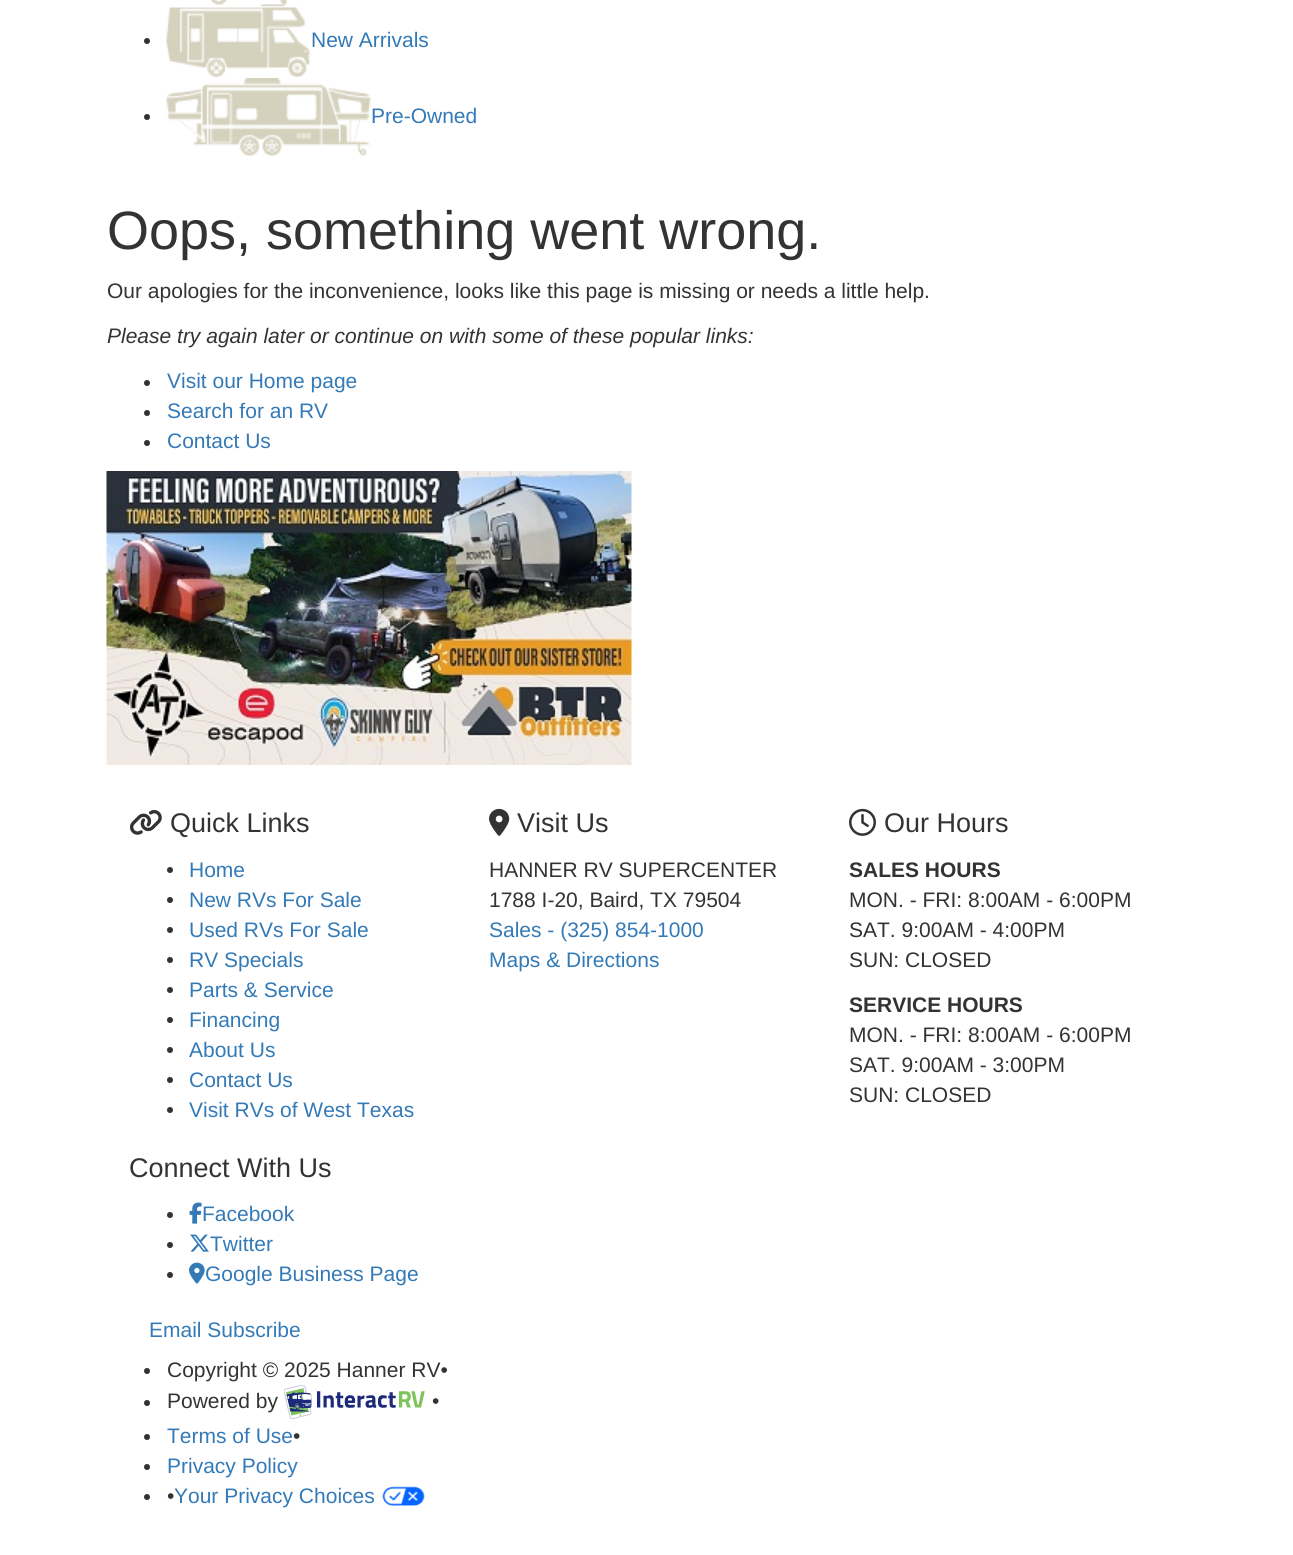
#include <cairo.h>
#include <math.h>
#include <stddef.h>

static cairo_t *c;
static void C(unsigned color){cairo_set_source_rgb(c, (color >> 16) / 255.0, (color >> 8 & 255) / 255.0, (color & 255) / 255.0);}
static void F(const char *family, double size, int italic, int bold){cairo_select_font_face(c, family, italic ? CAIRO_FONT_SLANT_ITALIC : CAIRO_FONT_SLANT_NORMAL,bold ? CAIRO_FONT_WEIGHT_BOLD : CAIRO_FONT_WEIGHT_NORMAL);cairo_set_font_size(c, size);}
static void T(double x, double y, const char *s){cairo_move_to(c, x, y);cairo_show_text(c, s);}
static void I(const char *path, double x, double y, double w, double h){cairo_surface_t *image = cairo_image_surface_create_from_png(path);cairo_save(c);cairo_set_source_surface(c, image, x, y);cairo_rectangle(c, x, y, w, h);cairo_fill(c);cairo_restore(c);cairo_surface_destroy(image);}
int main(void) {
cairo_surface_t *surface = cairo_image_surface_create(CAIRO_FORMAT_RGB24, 1293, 1555);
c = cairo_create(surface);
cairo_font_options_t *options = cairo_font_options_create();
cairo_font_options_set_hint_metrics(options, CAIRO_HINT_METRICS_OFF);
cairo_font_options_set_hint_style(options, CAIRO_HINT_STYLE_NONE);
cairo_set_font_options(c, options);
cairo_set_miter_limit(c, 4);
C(0xffffff);
cairo_paint(c);
I("1.png",210,0,78,5);
C(0x333333);
cairo_arc(c,147,41,3,0,2 * M_PI);
cairo_fill(c);
I("2.png",166,4,145,74);
F("Liberation Sans",21,0,0);
C(0x337ab7);
T(311,47,"New Arrivals");
C(0x333333);
cairo_new_path(c);
cairo_arc(c,147,117,3,0,2 * M_PI);
cairo_fill(c);
I("3.png",166,78,205,78);
C(0x337ab7);
T(371,123,"Pre-Owned");
F("Liberation Sans",54,0,0);
C(0x333333);
T(107,249,"Oops, something went wrong.");
F("Liberation Sans",21,0,0);
T(107,298,"Our apologies for the inconvenience, looks like this page is missing or needs a little help.");
F("Liberation Sans",21,1,0);
T(107,343,"Please try again later or continue on with some of these popular links:");
cairo_new_path(c);
cairo_arc(c,147,383,3,0,2 * M_PI);
cairo_fill(c);
F("Liberation Sans",21,0,0);
C(0x337ab7);
T(167,388,"Visit our Home page");
C(0x333333);
cairo_new_path(c);
cairo_arc(c,147,413,3,0,2 * M_PI);
cairo_fill(c);
C(0x337ab7);
T(167,418,"Search for an RV");
C(0x333333);
cairo_new_path(c);
cairo_arc(c,147,443,3,0,2 * M_PI);
cairo_fill(c);
C(0x337ab7);
T(167,448,"Contact Us");
I("4.png",106,471,526,294);
I("5.png",129,810,33,25);
F("Liberation Sans",27,0,0);
C(0x333333);
T(170,832,"Quick Links");
cairo_new_path(c);
cairo_arc(c,170,870,3,0,2 * M_PI);
cairo_fill(c);
F("Liberation Sans",21,0,0);
C(0x337ab7);
T(189,877,"Home");
C(0x333333);
cairo_new_path(c);
cairo_arc(c,170,900,3,0,2 * M_PI);
cairo_fill(c);
C(0x337ab7);
T(189,907,"New RVs For Sale");
C(0x333333);
cairo_new_path(c);
cairo_arc(c,170,930,3,0,2 * M_PI);
cairo_fill(c);
C(0x337ab7);
T(189,937,"Used RVs For Sale");
C(0x333333);
cairo_new_path(c);
cairo_arc(c,170,960,3,0,2 * M_PI);
cairo_fill(c);
C(0x337ab7);
T(189,967,"RV Specials");
C(0x333333);
cairo_new_path(c);
cairo_arc(c,170,990,3,0,2 * M_PI);
cairo_fill(c);
C(0x337ab7);
T(189,997,"Parts & Service");
C(0x333333);
cairo_new_path(c);
cairo_arc(c,170,1020,3,0,2 * M_PI);
cairo_fill(c);
C(0x337ab7);
T(189,1027,"Financing");
C(0x333333);
cairo_new_path(c);
cairo_arc(c,170,1050,3,0,2 * M_PI);
cairo_fill(c);
C(0x337ab7);
T(189,1057,"About Us");
C(0x333333);
cairo_new_path(c);
cairo_arc(c,170,1080,3,0,2 * M_PI);
cairo_fill(c);
C(0x337ab7);
T(189,1087,"Contact Us");
C(0x333333);
cairo_new_path(c);
cairo_arc(c,170,1110,3,0,2 * M_PI);
cairo_fill(c);
C(0x337ab7);
T(189,1117,"Visit RVs of West Texas");
I("6.png",489,808,21,28);
F("Liberation Sans",27,0,0);
C(0x333333);
T(517,832,"Visit Us");
F("Liberation Sans",21,0,0);
T(489,877,"HANNER RV SUPERCENTER");
T(489,907,"1788 I-20, Baird, TX 79504");
C(0x337ab7);
T(489,937,"Sales - (325) 854-1000");
T(489,967,"Maps & Directions");
I("7.png",849,808,27,28);
F("Liberation Sans",27,0,0);
C(0x333333);
T(884,832,"Our Hours");
F("Liberation Sans",21,0,1);
T(849,877,"SALES HOURS");
F("Liberation Sans",21,0,0);
T(849,907,"MON. - FRI: 8:00AM - 6:00PM");
T(849,937,"SAT. 9:00AM - 4:00PM");
T(849,967,"SUN: CLOSED");
F("Liberation Sans",21,0,1);
T(849,1012,"SERVICE HOURS");
F("Liberation Sans",21,0,0);
T(849,1042,"MON. - FRI: 8:00AM - 6:00PM");
T(849,1072,"SAT. 9:00AM - 3:00PM");
T(849,1102,"SUN: CLOSED");
F("Liberation Sans",27,0,0);
T(129,1177,"Connect With Us");
cairo_new_path(c);
cairo_arc(c,170,1215,3,0,2 * M_PI);
cairo_fill(c);
I("8.png",189,1202,13,22);
F("Liberation Sans",21,0,0);
C(0x337ab7);
T(202,1221,"Facebook");
C(0x333333);
cairo_new_path(c);
cairo_arc(c,170,1245,3,0,2 * M_PI);
cairo_fill(c);
I("9.png",190,1234,19,18);
C(0x337ab7);
T(210,1251,"Twitter");
C(0x333333);
cairo_new_path(c);
cairo_arc(c,170,1275,3,0,2 * M_PI);
cairo_fill(c);
I("10.png",189,1262,16,22);
C(0x337ab7);
T(205,1281,"Google Business Page");
T(149,1337,"Email Subscribe");
C(0x333333);
cairo_new_path(c);
cairo_arc(c,147,1371,3,0,2 * M_PI);
cairo_fill(c);
T(167,1377,"Copyright © 2025 Hanner RV•");
cairo_new_path(c);
cairo_arc(c,147,1403,3,0,2 * M_PI);
cairo_fill(c);
T(167,1408,"Powered by");
I("11.png",284,1385,141,34);
T(432,1408,"•");
cairo_new_path(c);
cairo_arc(c,147,1437,3,0,2 * M_PI);
cairo_fill(c);
C(0x337ab7);
T(167,1443,"Terms of Use");
C(0x333333);
T(293,1443,"•");
cairo_new_path(c);
cairo_arc(c,147,1467,3,0,2 * M_PI);
cairo_fill(c);
C(0x337ab7);
T(167,1473,"Privacy Policy");
C(0x333333);
cairo_new_path(c);
cairo_arc(c,147,1497,3,0,2 * M_PI);
cairo_fill(c);
T(167,1503,"•");
C(0x337ab7);
T(174,1503,"Your Privacy Choices");
I("12.png",382,1486,43,20);
cairo_surface_write_to_png(surface, "o.png");
cairo_font_options_destroy(options);
cairo_destroy(c);
cairo_surface_destroy(surface);
return 0;
}
